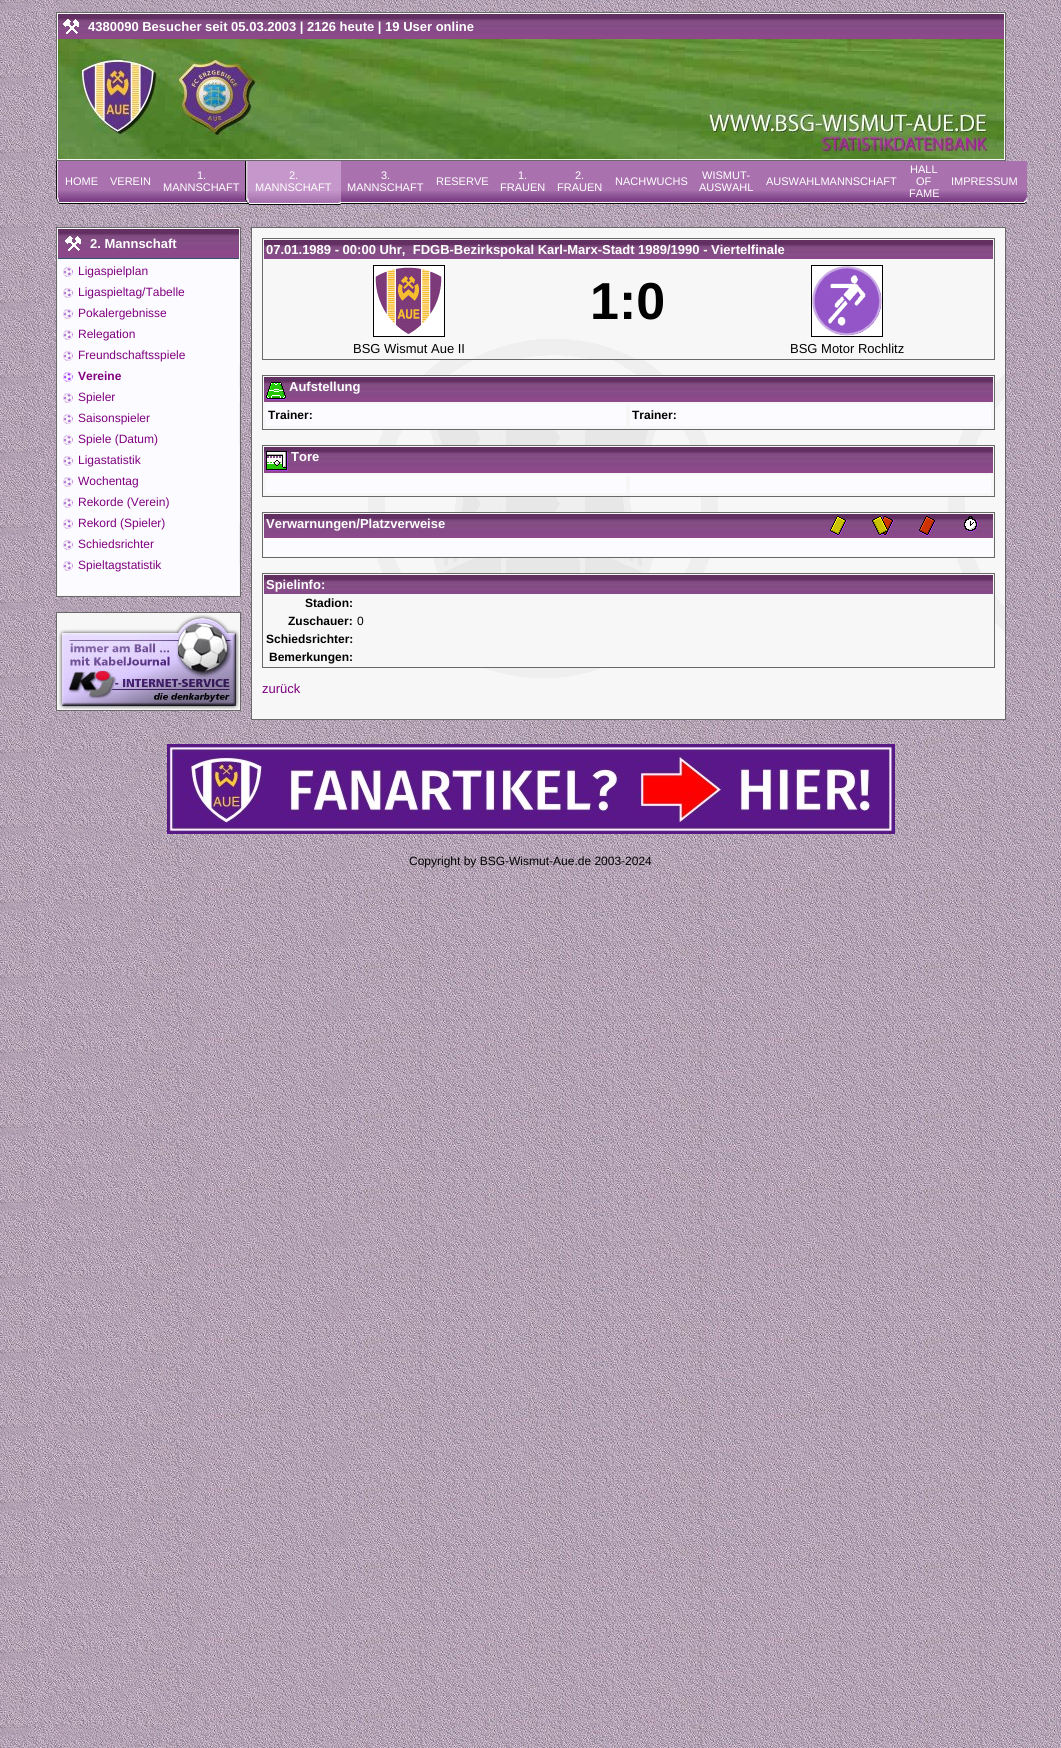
#include <cairo.h>
#include <math.h>
#include <stddef.h>

static cairo_t *c;
static void C(unsigned color){cairo_set_source_rgb(c, (color >> 16) / 255.0, (color >> 8 & 255) / 255.0, (color & 255) / 255.0);}
static void F(const char *family, double size, int italic, int bold){cairo_select_font_face(c, family, italic ? CAIRO_FONT_SLANT_ITALIC : CAIRO_FONT_SLANT_NORMAL,bold ? CAIRO_FONT_WEIGHT_BOLD : CAIRO_FONT_WEIGHT_NORMAL);cairo_set_font_size(c, size);}
static void T(double x, double y, const char *s){cairo_move_to(c, x, y);cairo_show_text(c, s);}
static void R(double x, double y, double w, double h){cairo_rectangle(c, x, y, w, h);cairo_fill(c);}
static void I(const char *path, double x, double y, double w, double h){cairo_surface_t *image = cairo_image_surface_create_from_png(path);cairo_save(c);cairo_set_source_surface(c, image, x, y);cairo_rectangle(c, x, y, w, h);cairo_fill(c);cairo_restore(c);cairo_surface_destroy(image);}
int main(void) {
cairo_surface_t *surface = cairo_image_surface_create(CAIRO_FORMAT_RGB24, 1061, 1748);
c = cairo_create(surface);
cairo_font_options_t *options = cairo_font_options_create();
cairo_font_options_set_hint_metrics(options, CAIRO_HINT_METRICS_OFF);
cairo_font_options_set_hint_style(options, CAIRO_HINT_STYLE_NONE);
cairo_set_font_options(c, options);
cairo_set_miter_limit(c, 4);
C(0xffffff);
cairo_paint(c);
I("1.png",0,0,1061,1748);
I("2.png",57,13,948,147);
cairo_rectangle(c,56.5,12.5,949,148);
C(0x696969);
cairo_set_line_width(c,1);
cairo_stroke(c);
I("3.png",58,14,937,25);
I("4.png",63,19,16,15);
F("Liberation Sans",13,0,1);
C(0xffffff);
T(88,31,"4380090 Besucher seit 05.03.2003 | 2126 heute | 19 User online");
I("5.png",995,14,9,25);
I("6.png",58,39,946,120);
I("7.png",56,161,3,42);
I("8.png",59,161,45,43);
F("Liberation Sans",11,0,0);
T(65,185,"HOME");
I("9.png",104,161,53,43);
T(110,185,"VEREIN");
I("10.png",157,161,88,43);
T(197,179,"1.");
T(163,191,"MANNSCHAFT");
I("11.png",245,161,4,43);
I("12.png",249,161,89,44);
T(289,179,"2.");
T(255,191,"MANNSCHAFT");
I("13.png",338,161,3,44);
I("14.png",341,161,89,43);
T(381,179,"3.");
T(347,191,"MANNSCHAFT");
I("15.png",430,161,64,43);
T(436,185,"RESERVE");
I("16.png",494,161,57,43);
T(518,179,"1.");
T(500,191,"FRAUEN");
I("17.png",551,161,58,43);
T(575,179,"2.");
T(557,191,"FRAUEN");
I("18.png",609,161,84,43);
T(615,185,"NACHWUCHS");
I("19.png",693,161,67,43);
T(702,179,"WISMUT-");
T(699,191,"AUSWAHL");
I("20.png",760,161,143,43);
T(766,185,"AUSWAHLMANNSCHAFT");
I("21.png",903,161,42,43);
T(910,173,"HALL");
T(916,185,"OF");
T(909,197,"FAME");
I("22.png",945,161,79,43);
T(951,185,"IMPRESSUM");
I("23.png",1024,161,3,43);
I("24.png",57,228,183,368);
cairo_rectangle(c,56.5,227.5,184,369);
C(0x696969);
cairo_stroke(c);
I("25.png",58,229,181,29);
C(0x375576);
R(58,258,181,1);
I("26.png",65,236,16,15);
F("Liberation Sans",13,0,1);
C(0xffffff);
T(90,248,"2. Mannschaft");
C(0xfcfbff);
R(58,259,181,336);
I("27.png",63,267,10,10);
F("Liberation Sans",12,0,0);
C(0x7f007f);
T(78,275,"Ligaspielplan");
I("27.png",63,288,10,10);
T(78,296,"Ligaspieltag/Tabelle");
I("27.png",63,309,10,10);
T(78,317,"Pokalergebnisse");
I("27.png",63,330,10,10);
T(78,338,"Relegation");
I("27.png",63,351,10,10);
T(78,359,"Freundschaftsspiele");
I("28.png",63,372,10,10);
F("Liberation Sans",12,0,1);
T(78,380,"Vereine");
I("27.png",63,393,10,10);
F("Liberation Sans",12,0,0);
T(78,401,"Spieler");
I("27.png",63,414,10,10);
T(78,422,"Saisonspieler");
I("27.png",63,435,10,10);
T(78,443,"Spiele (Datum)");
I("27.png",63,456,10,10);
T(78,464,"Ligastatistik");
I("27.png",63,477,10,10);
T(78,485,"Wochentag");
I("27.png",63,498,10,10);
T(78,506,"Rekorde (Verein)");
I("27.png",63,519,10,10);
T(78,527,"Rekord (Spieler)");
I("27.png",63,540,10,10);
T(78,548,"Schiedsrichter");
I("27.png",63,561,10,10);
T(78,569,"Spieltagstatistik");
C(0xf7f7f7);
cairo_rectangle(c,56.5,612.5,184,98);
cairo_fill_preserve(c);
C(0x696969);
cairo_stroke(c);
I("29.png",58,614,181,95);
I("30.png",252,228,753,491);
cairo_rectangle(c,251.5,227.5,754,492);
cairo_stroke(c);
I("31.png",442,328,202,31);
cairo_rectangle(c,262.5,238.5,732,121);
cairo_stroke(c);
I("32.png",264,240,729,19);
F("Liberation Sans",13,0,1);
C(0xffffff);
T(266,254,"07.01.1989 - 00:00 Uhr,  FDGB-Bezirkspokal Karl-Marx-Stadt 1989/1990 - Viertelfinale");
cairo_rectangle(c,373.5,265.5,71,71);
C(0x000000);
cairo_stroke(c);
I("33.png",374,266,70,70);
F("Liberation Sans",52,0,1);
T(590,319,"1:0");
cairo_rectangle(c,811.5,265.5,71,71);
cairo_stroke(c);
I("34.png",812,266,70,70);
F("Liberation Sans",13,0,0);
T(353,353,"BSG Wismut Aue II");
T(790,353,"BSG Motor Rochlitz");
C(0xf7f7f7);
R(384,376,610,53);
cairo_rectangle(c,262.5,375.5,732,54);
C(0x696969);
cairo_stroke(c);
I("35.png",264,377,729,25);
I("36.png",266,382,20,18);
F("Liberation Sans",13,0,1);
C(0xffffff);
T(289,391,"Aufstellung");
C(0xfcfbff);
R(266,404,360,22);
F("Liberation Sans",12,0,1);
C(0x000000);
T(268,419,"Trainer:");
C(0xfcfbff);
R(630,404,361,22);
C(0x000000);
T(632,419,"Trainer:");
C(0xf7f7f7);
R(368,446,607,50);
cairo_rectangle(c,262.5,445.5,732,51);
C(0x696969);
cairo_stroke(c);
I("37.png",264,447,729,26);
I("38.png",266,451,22,20);
F("Liberation Sans",13,0,1);
C(0xffffff);
T(291,461,"Tore");
C(0xfcfbff);
R(266,475,360,18);
R(630,475,361,18);
C(0xf7f7f7);
R(368,513,606,44);
cairo_rectangle(c,262.5,512.5,732,45);
C(0x696969);
cairo_stroke(c);
I("39.png",264,514,553,24);
C(0xffffff);
T(266,528,"Verwarnungen/Platzverweise");
I("40.png",817,514,44,24);
I("41.png",830,516,17,20);
I("40.png",861,514,44,24);
I("42.png",872,516,22,20);
I("40.png",905,514,44,24);
I("43.png",919,516,16,20);
I("40.png",949,514,44,24);
I("44.png",964,516,14,16);
C(0xfcfbff);
R(264,538,729,18);
C(0xf7f7f7);
R(383,574,611,93);
cairo_rectangle(c,262.5,573.5,732,94);
C(0x696969);
cairo_stroke(c);
I("32.png",264,575,729,19);
C(0xffffff);
T(266,589,"Spielinfo:");
F("Liberation Sans",12,0,1);
C(0x000000);
T(305,607,"Stadion:");
T(288,625,"Zuschauer:");
F("Liberation Sans",12,0,0);
T(357,625,"0");
F("Liberation Sans",12,0,1);
T(266,643,"Schiedsrichter:");
T(269,661,"Bemerkungen:");
F("Liberation Sans",13,0,0);
C(0x7f007f);
T(262,693,"zurück");
I("45.png",167,744,728,90);
F("Liberation Sans",12,0,0);
C(0x000000);
T(409,865,"Copyright by BSG-Wismut-Aue.de 2003-2024");
cairo_surface_write_to_png(surface, "o.png");
cairo_font_options_destroy(options);
cairo_destroy(c);
cairo_surface_destroy(surface);
return 0;
}
